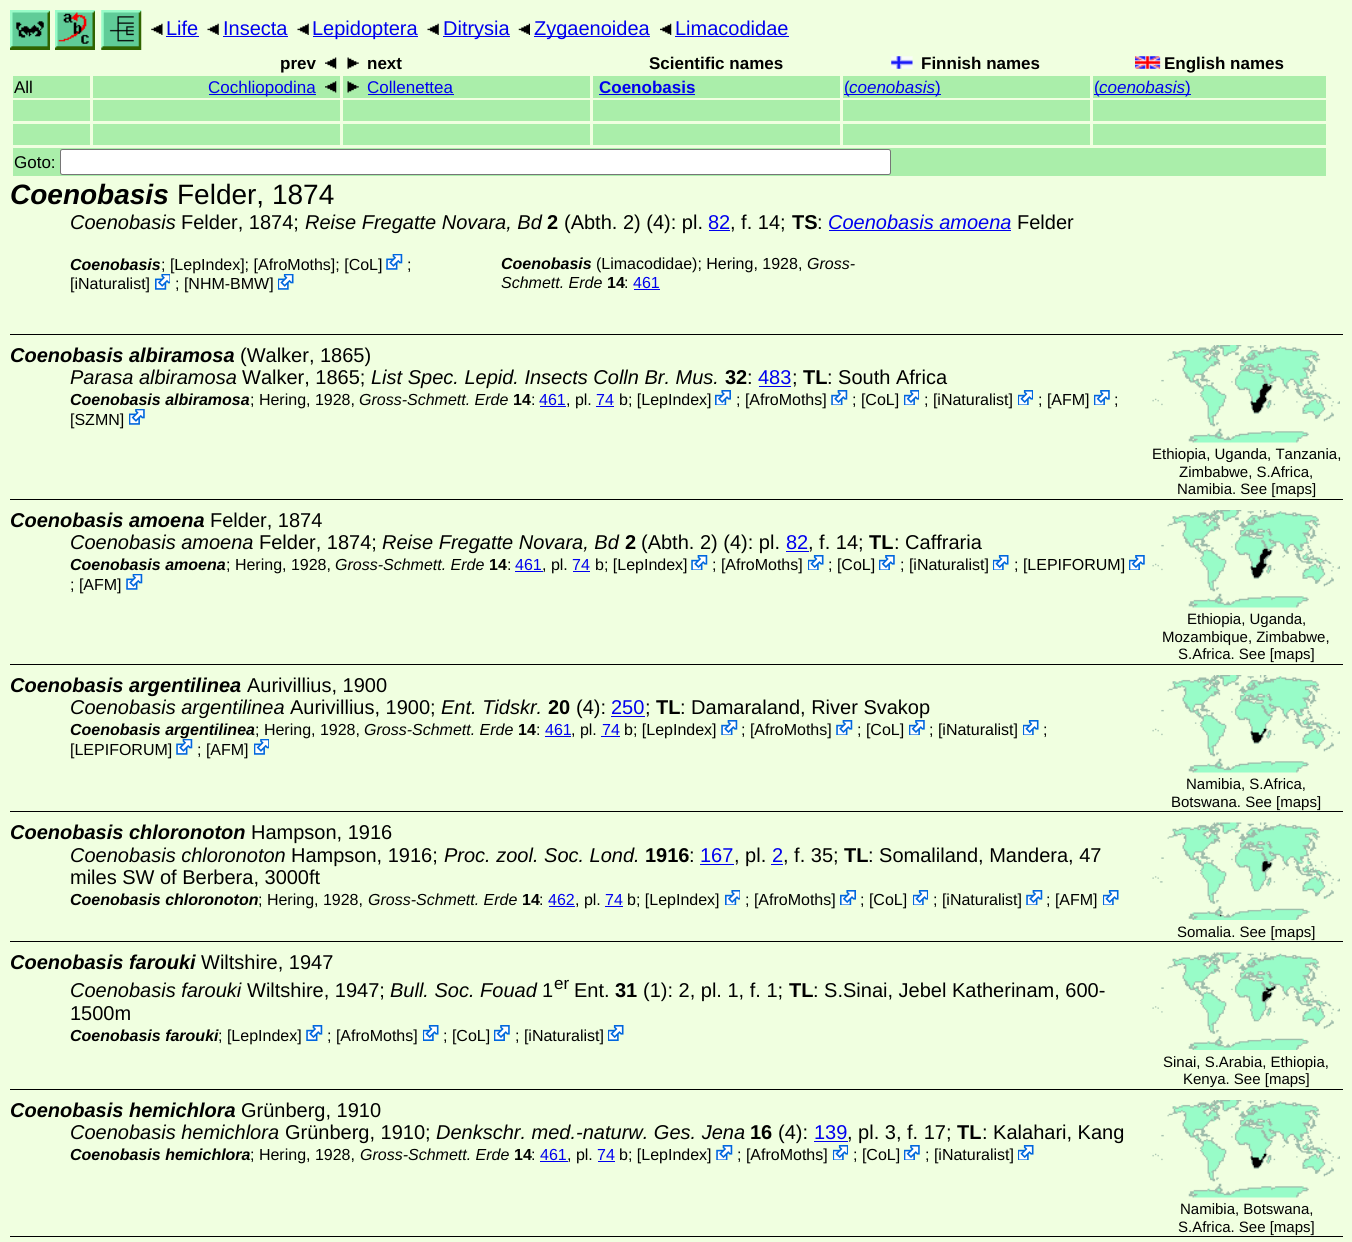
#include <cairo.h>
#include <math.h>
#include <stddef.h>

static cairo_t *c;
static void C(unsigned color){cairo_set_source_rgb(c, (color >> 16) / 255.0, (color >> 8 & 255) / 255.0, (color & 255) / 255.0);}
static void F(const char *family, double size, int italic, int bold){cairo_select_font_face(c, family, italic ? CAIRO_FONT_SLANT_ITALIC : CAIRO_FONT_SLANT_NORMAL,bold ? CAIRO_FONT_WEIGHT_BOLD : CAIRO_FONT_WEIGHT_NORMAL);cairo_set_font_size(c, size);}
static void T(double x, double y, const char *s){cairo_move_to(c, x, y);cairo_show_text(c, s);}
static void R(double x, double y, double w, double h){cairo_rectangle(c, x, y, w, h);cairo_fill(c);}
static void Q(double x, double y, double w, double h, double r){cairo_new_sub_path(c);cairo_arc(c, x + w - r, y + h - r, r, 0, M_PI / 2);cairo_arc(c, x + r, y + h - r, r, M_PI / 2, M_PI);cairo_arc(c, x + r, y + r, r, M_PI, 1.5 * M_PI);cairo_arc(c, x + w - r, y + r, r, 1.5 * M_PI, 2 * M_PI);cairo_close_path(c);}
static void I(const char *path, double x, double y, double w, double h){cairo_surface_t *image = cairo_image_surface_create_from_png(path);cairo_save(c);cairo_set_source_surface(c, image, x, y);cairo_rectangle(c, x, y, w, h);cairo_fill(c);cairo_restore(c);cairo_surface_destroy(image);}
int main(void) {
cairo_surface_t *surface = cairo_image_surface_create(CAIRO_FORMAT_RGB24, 1352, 1242);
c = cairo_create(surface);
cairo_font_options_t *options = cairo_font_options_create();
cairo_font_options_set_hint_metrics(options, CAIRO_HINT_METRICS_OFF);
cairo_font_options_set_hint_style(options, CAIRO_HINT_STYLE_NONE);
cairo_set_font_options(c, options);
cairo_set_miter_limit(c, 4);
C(0xf0ffe0);
cairo_paint(c);
I("1.png",10,10,40,40);
I("2.png",55,10,40,40);
I("3.png",101,10,41,40);
I("4.png",151,23,12,12);
F("Liberation Sans",20,0,0);
C(0x0000ee);
T(166,35,"Life");
R(166,36,33,1);
I("5.png",207,23,12,12);
T(223,35,"Insecta");
R(223,36,65,1);
I("5.png",297,23,12,12);
R(313,36,105,1);
T(312,35,"Lepidoptera");
I("5.png",427,23,12,12);
R(443,36,67,1);
T(443,35,"Ditrysia");
I("6.png",518,23,12,12);
R(534,36,116,1);
T(534,35,"Zygaenoidea");
I("7.png",660,23,12,12);
T(675,35,"Limacodidae");
R(675,36,114,1);
F("Liberation Sans",17,0,1);
C(0x000000);
T(280,69,"prev");
I("8.png",325,57,12,12);
I("9.png",347,57,12,12);
T(367,69,"next");
T(649,69,"Scientific names");
I("10.png",891,56,22,13);
T(921,69,"Finnish names");
I("11.png",1135,56,26,13);
T(1164,69,"English names");
C(0xaaeeaa);
R(13,76,77,22);
F("Liberation Sans",17,0,0);
C(0x000000);
T(14,93,"All");
C(0xaaeeaa);
R(93,76,247,22);
C(0x0000ee);
R(209,94,107,1);
T(208,93,"Cochliopodina");
I("12.png",325,81,12,12);
C(0xaaeeaa);
R(343,76,247,22);
I("13.png",347,81,12,12);
C(0x0000ee);
T(367,93,"Collenettea");
R(368,94,86,1);
C(0xaaeeaa);
R(593,76,247,22);
F("Liberation Sans",17,0,1);
C(0x0000ee);
T(599,93,"Coenobasis");
R(599,94,96,1);
C(0xaaeeaa);
R(843,76,247,22);
C(0x0000ee);
R(844,94,97,1);
F("Liberation Sans",17,0,0);
T(844,93,"(");
F("Liberation Sans",17,1,0);
T(849,93,"coenobasis");
F("Liberation Sans",17,0,0);
T(935,93,")");
C(0xaaeeaa);
R(1093,76,233,22);
C(0x0000ee);
R(1094,94,5,1);
T(1094,93,"(");
R(1099,94,92,1);
F("Liberation Sans",17,1,0);
T(1099,93,"coenobasis");
F("Liberation Sans",17,0,0);
T(1185,93,")");
C(0xaaeeaa);
R(13,100,77,21);
R(93,100,247,21);
R(343,100,247,21);
R(593,100,247,21);
R(843,100,247,21);
R(1093,100,233,21);
R(13,124,77,21);
R(93,124,247,21);
R(343,124,247,21);
R(593,124,247,21);
R(843,124,247,21);
R(1093,124,233,21);
R(13,148,1313,28);
C(0x000000);
T(14,168,"Goto:");
C(0xffffff);
Q(60.5,149.5,830,25,2);
cairo_fill_preserve(c);
C(0x767676);
cairo_set_line_width(c,1);
cairo_stroke(c);
F("Liberation Sans",28,1,1);
C(0x000000);
T(10,204,"Coenobasis");
F("Liberation Sans",28,0,0);
T(177,204,"Felder, 1874");
F("Liberation Sans",20,1,0);
T(70,229,"Coenobasis");
F("Liberation Sans",20,0,0);
T(181,229,"Felder, 1874;");
F("Liberation Sans",20,1,0);
T(305,229,"Reise Fregatte Novara, Bd");
F("Liberation Sans",20,0,1);
T(547,229,"2");
F("Liberation Sans",20,0,0);
T(564,229,"(Abth. 2) (4): pl.");
C(0x0000ee);
T(708,229,"82");
R(709,230,21,1);
C(0x000000);
T(730,229,", f. 14;");
F("Liberation Sans",20,0,1);
T(792,229,"TS");
F("Liberation Sans",20,0,0);
T(817,229,":");
F("Liberation Sans",20,1,0);
C(0x0000ee);
T(828,229,"Coenobasis amoena");
R(829,230,182,1);
F("Liberation Sans",20,0,0);
C(0x000000);
T(1017,229,"Felder");
F("Liberation Sans",16,1,1);
T(70,270,"Coenobasis");
F("Liberation Sans",16,0,0);
T(161,270,"; [LepIndex]; [AfroMoths]; [CoL]");
I("14.png",386,254,17,16);
T(407,270,";");
T(70,289,"[iNaturalist]");
I("15.png",155,274,15,16);
T(175,289,"; [NHM-BMW]");
I("16.png",278,274,16,16);
F("Liberation Sans",16,1,1);
T(501,269,"Coenobasis");
F("Liberation Sans",16,0,0);
T(596,269,"(Limacodidae); Hering, 1928,");
F("Liberation Sans",16,1,0);
T(807,269,"Gross-");
T(501,288,"Schmett. Erde");
F("Liberation Sans",16,0,1);
T(607,288,"14");
F("Liberation Sans",16,0,0);
T(624,288,":");
C(0x0000ee);
T(633,288,"461");
R(634,289,26,1);
C(0x000000);
R(10,334,1333,1);
F("Liberation Sans",20,1,1);
T(10,362,"Coenobasis albiramosa");
F("Liberation Sans",20,0,0);
T(240,362,"(Walker, 1865)");
F("Liberation Sans",20,1,0);
T(70,384,"Parasa albiramosa");
F("Liberation Sans",20,0,0);
T(242,384,"Walker, 1865;");
F("Liberation Sans",20,1,0);
T(371,384,"List Spec. Lepid. Insects Colln Br. Mus.");
F("Liberation Sans",20,0,1);
T(725,384,"32");
F("Liberation Sans",20,0,0);
T(747,384,":");
C(0x0000ee);
T(758,384,"483");
R(759,386,32,1);
C(0x000000);
T(792,384,";");
F("Liberation Sans",20,0,1);
T(803,384,"TL");
F("Liberation Sans",20,0,0);
T(827,384,": South Africa");
F("Liberation Sans",16,1,1);
T(70,405,"Coenobasis albiramosa");
F("Liberation Sans",16,0,0);
T(250,405,"; Hering, 1928,");
F("Liberation Sans",16,1,0);
T(359,405,"Gross-Schmett. Erde");
F("Liberation Sans",16,0,1);
T(513,405,"14");
F("Liberation Sans",16,0,0);
T(531,405,":");
C(0x0000ee);
T(539,405,"461");
R(540,406,26,1);
C(0x000000);
T(566,405,", pl.");
C(0x0000ee);
T(596,405,"74");
R(596,406,18,1);
C(0x000000);
T(619,405,"b; [LepIndex]");
I("17.png",715,390,16,15);
T(736,405,"; [AfroMoths]");
I("18.png",831,390,17,15);
T(852,405,"; [CoL]");
I("19.png",904,390,15,15);
T(924,405,"; [iNaturalist]");
I("20.png",1018,390,15,15);
T(1038,405,"; [AFM]");
I("21.png",1094,390,16,15);
T(1114,405,";");
T(70,425,"[SZMN]");
I("22.png",129,409,16,16);
I("23.png",1152,345,188,98);
F("Liberation Sans",15,0,0);
T(1152,459,"Ethiopia, Uganda, Tanzania,");
T(1179,477,"Zimbabwe, S.Africa,");
T(1177,494,"Namibia. See [maps]");
R(10,499,1333,1);
F("Liberation Sans",20,1,1);
T(10,527,"Coenobasis amoena");
F("Liberation Sans",20,0,0);
T(210,527,"Felder, 1874");
F("Liberation Sans",20,1,0);
T(70,549,"Coenobasis amoena");
F("Liberation Sans",20,0,0);
T(259,549,"Felder, 1874;");
F("Liberation Sans",20,1,0);
T(382,549,"Reise Fregatte Novara, Bd");
F("Liberation Sans",20,0,1);
T(625,549,"2");
F("Liberation Sans",20,0,0);
T(641,549,"(Abth. 2) (4): pl.");
C(0x0000ee);
T(786,549,"82");
R(786,551,23,1);
C(0x000000);
T(808,549,", f. 14;");
F("Liberation Sans",20,0,1);
T(869,549,"TL");
F("Liberation Sans",20,0,0);
T(894,549,": Caffraria");
F("Liberation Sans",16,1,1);
T(70,570,"Coenobasis amoena");
F("Liberation Sans",16,0,0);
T(226,570,"; Hering, 1928,");
F("Liberation Sans",16,1,0);
T(335,570,"Gross-Schmett. Erde");
F("Liberation Sans",16,0,1);
T(489,570,"14");
F("Liberation Sans",16,0,0);
T(507,570,":");
C(0x0000ee);
T(515,570,"461");
R(515,571,28,1);
C(0x000000);
T(542,570,", pl.");
C(0x0000ee);
T(572,570,"74");
R(573,571,17,1);
C(0x000000);
T(595,570,"b; [LepIndex]");
I("18.png",691,555,17,15);
T(712,570,"; [AfroMoths]");
I("24.png",808,555,16,15);
T(828,570,"; [CoL]");
I("21.png",879,555,16,15);
T(900,570,"; [iNaturalist]");
I("24.png",993,555,16,15);
T(1014,570,"; [LEPIFORUM]");
I("21.png",1129,555,16,15);
T(70,590,"; [AFM]");
I("14.png",126,574,17,16);
I("25.png",1152,510,188,98);
F("Liberation Sans",15,0,0);
T(1187,624,"Ethiopia, Uganda,");
T(1162,642,"Mozambique, Zimbabwe,");
T(1178,659,"S.Africa. See [maps]");
R(10,664,1333,1);
F("Liberation Sans",20,1,1);
T(10,692,"Coenobasis argentilinea");
F("Liberation Sans",20,0,0);
T(247,692,"Aurivillius, 1900");
F("Liberation Sans",20,1,0);
T(70,714,"Coenobasis argentilinea");
F("Liberation Sans",20,0,0);
T(290,714,"Aurivillius, 1900;");
F("Liberation Sans",20,1,0);
T(441,714,"Ent. Tidskr.");
F("Liberation Sans",20,0,1);
T(548,714,"20");
F("Liberation Sans",20,0,0);
T(576,714,"(4):");
C(0x0000ee);
T(611,714,"250");
R(611,716,34,1);
C(0x000000);
T(645,714,";");
F("Liberation Sans",20,0,1);
T(656,714,"TL");
F("Liberation Sans",20,0,0);
T(680,714,": Damaraland, River Svakop");
F("Liberation Sans",16,1,1);
T(70,735,"Coenobasis argentilinea");
F("Liberation Sans",16,0,0);
T(255,735,"; Hering, 1928,");
F("Liberation Sans",16,1,0);
T(364,735,"Gross-Schmett. Erde");
F("Liberation Sans",16,0,1);
T(518,735,"14");
F("Liberation Sans",16,0,0);
T(536,735,":");
C(0x0000ee);
T(545,735,"461");
R(545,736,26,1);
C(0x000000);
T(571,735,", pl.");
C(0x0000ee);
T(602,735,"74");
R(601,736,19,1);
C(0x000000);
T(624,735,"b; [LepIndex]");
I("18.png",721,720,17,15);
T(741,735,"; [AfroMoths]");
I("18.png",836,720,17,15);
T(857,735,"; [CoL]");
I("21.png",909,720,16,15);
T(929,735,"; [iNaturalist]");
I("24.png",1023,720,16,15);
T(1043,735,";");
T(70,755,"[LEPIFORUM]");
I("14.png",176,739,17,16);
T(197,755,"; [AFM]");
I("26.png",254,739,15,16);
I("27.png",1152,675,188,98);
F("Liberation Sans",15,0,0);
T(1186,789,"Namibia, S.Africa,");
T(1171,807,"Botswana. See [maps]");
R(10,811,1333,1);
F("Liberation Sans",20,1,1);
T(10,839,"Coenobasis chloronoton");
F("Liberation Sans",20,0,0);
T(251,839,"Hampson, 1916");
F("Liberation Sans",20,1,0);
T(70,862,"Coenobasis chloronoton");
F("Liberation Sans",20,0,0);
T(291,862,"Hampson, 1916;");
F("Liberation Sans",20,1,0);
T(444,862,"Proc. zool. Soc. Lond.");
F("Liberation Sans",20,0,1);
T(645,862,"1916");
F("Liberation Sans",20,0,0);
T(689,862,":");
C(0x0000ee);
T(700,862,"167");
R(700,864,34,1);
C(0x000000);
T(734,862,", pl.");
C(0x0000ee);
T(772,862,"2");
R(771,864,12,1);
C(0x000000);
T(783,862,", f. 35;");
F("Liberation Sans",20,0,1);
T(844,862,"TL");
F("Liberation Sans",20,0,0);
T(868,862,": Somaliland, Mandera, 47");
T(70,884,"miles SW of Berbera, 3000ft");
F("Liberation Sans",16,1,1);
T(70,905,"Coenobasis chloronoton");
F("Liberation Sans",16,0,0);
T(258,905,"; Hering, 1928,");
F("Liberation Sans",16,1,0);
T(368,905,"Gross-Schmett. Erde");
F("Liberation Sans",16,0,1);
T(522,905,"14");
F("Liberation Sans",16,0,0);
T(539,905,":");
C(0x0000ee);
T(548,905,"462");
R(549,906,26,1);
C(0x000000);
T(575,905,", pl.");
C(0x0000ee);
T(605,905,"74");
R(605,906,18,1);
C(0x000000);
T(627,905,"b; [LepIndex]");
I("28.png",725,890,15,15);
T(745,905,"; [AfroMoths]");
I("17.png",840,890,16,15);
T(860,905,"; [CoL]");
I("20.png",913,890,15,15);
T(933,905,"; [iNaturalist]");
I("18.png",1026,890,17,15);
T(1046,905,"; [AFM]");
I("24.png",1103,890,16,15);
I("29.png",1152,822,188,98);
F("Liberation Sans",15,0,0);
T(1177,937,"Somalia. See [maps]");
R(10,941,1333,1);
F("Liberation Sans",20,1,1);
T(10,969,"Coenobasis farouki");
F("Liberation Sans",20,0,0);
T(201,969,"Wiltshire, 1947");
F("Liberation Sans",20,1,0);
T(70,997,"Coenobasis farouki");
F("Liberation Sans",20,0,0);
T(247,997,"Wiltshire, 1947;");
F("Liberation Sans",20,1,0);
T(390,997,"Bull. Soc. Fouad");
F("Liberation Sans",20,0,0);
T(542,997,"1");
F("Liberation Sans",17,0,0);
T(554,989,"er");
F("Liberation Sans",20,0,0);
T(574,997,"Ent.");
F("Liberation Sans",20,0,1);
T(615,997,"31");
F("Liberation Sans",20,0,0);
T(643,997,"(1): 2, pl. 1, f. 1;");
F("Liberation Sans",20,0,1);
T(789,997,"TL");
F("Liberation Sans",20,0,0);
T(813,997,": S.Sinai, Jebel Katherinam, 600-");
T(70,1020,"1500m");
F("Liberation Sans",16,1,1);
T(70,1041,"Coenobasis farouki");
F("Liberation Sans",16,0,0);
T(218,1041,"; [LepIndex]");
I("30.png",306,1025,17,16);
T(327,1041,"; [AfroMoths]");
I("31.png",423,1025,16,16);
T(443,1041,"; [CoL]");
I("32.png",494,1025,16,16);
T(515,1041,"; [iNaturalist]");
I("31.png",608,1025,16,16);
I("33.png",1152,952,188,98);
F("Liberation Sans",15,0,0);
T(1163,1067,"Sinai, S.Arabia, Ethiopia,");
T(1183,1084,"Kenya. See [maps]");
R(10,1089,1333,1);
F("Liberation Sans",20,1,1);
T(10,1117,"Coenobasis hemichlora");
F("Liberation Sans",20,0,0);
T(241,1117,"Grünberg, 1910");
F("Liberation Sans",20,1,0);
T(70,1139,"Coenobasis hemichlora");
F("Liberation Sans",20,0,0);
T(285,1139,"Grünberg, 1910;");
F("Liberation Sans",20,1,0);
T(436,1139,"Denkschr. med.-naturw. Ges. Jena");
F("Liberation Sans",20,0,1);
T(750,1139,"16");
F("Liberation Sans",20,0,0);
T(778,1139,"(4):");
C(0x0000ee);
T(814,1139,"139");
R(814,1141,34,1);
C(0x000000);
T(847,1139,", pl. 3, f. 17;");
F("Liberation Sans",20,0,1);
T(957,1139,"TL");
F("Liberation Sans",20,0,0);
T(982,1139,": Kalahari, Kang");
F("Liberation Sans",16,1,1);
T(70,1160,"Coenobasis hemichlora");
F("Liberation Sans",16,0,0);
T(250,1160,"; Hering, 1928,");
F("Liberation Sans",16,1,0);
T(360,1160,"Gross-Schmett. Erde");
F("Liberation Sans",16,0,1);
T(514,1160,"14");
F("Liberation Sans",16,0,0);
T(531,1160,":");
C(0x0000ee);
T(540,1160,"461");
R(540,1161,28,1);
C(0x000000);
T(567,1160,", pl.");
C(0x0000ee);
T(597,1160,"74");
R(598,1161,17,1);
C(0x000000);
T(619,1160,"b; [LepIndex]");
I("18.png",716,1145,17,15);
T(737,1160,"; [AfroMoths]");
I("20.png",833,1145,15,15);
T(853,1160,"; [CoL]");
I("21.png",904,1145,16,15);
T(925,1160,"; [iNaturalist]");
I("24.png",1018,1145,16,15);
I("34.png",1152,1100,188,98);
F("Liberation Sans",15,0,0);
T(1180,1214,"Namibia, Botswana,");
T(1178,1232,"S.Africa. See [maps]");
R(10,1236,1333,1);
cairo_surface_write_to_png(surface, "o.png");
cairo_font_options_destroy(options);
cairo_destroy(c);
cairo_surface_destroy(surface);
return 0;
}
